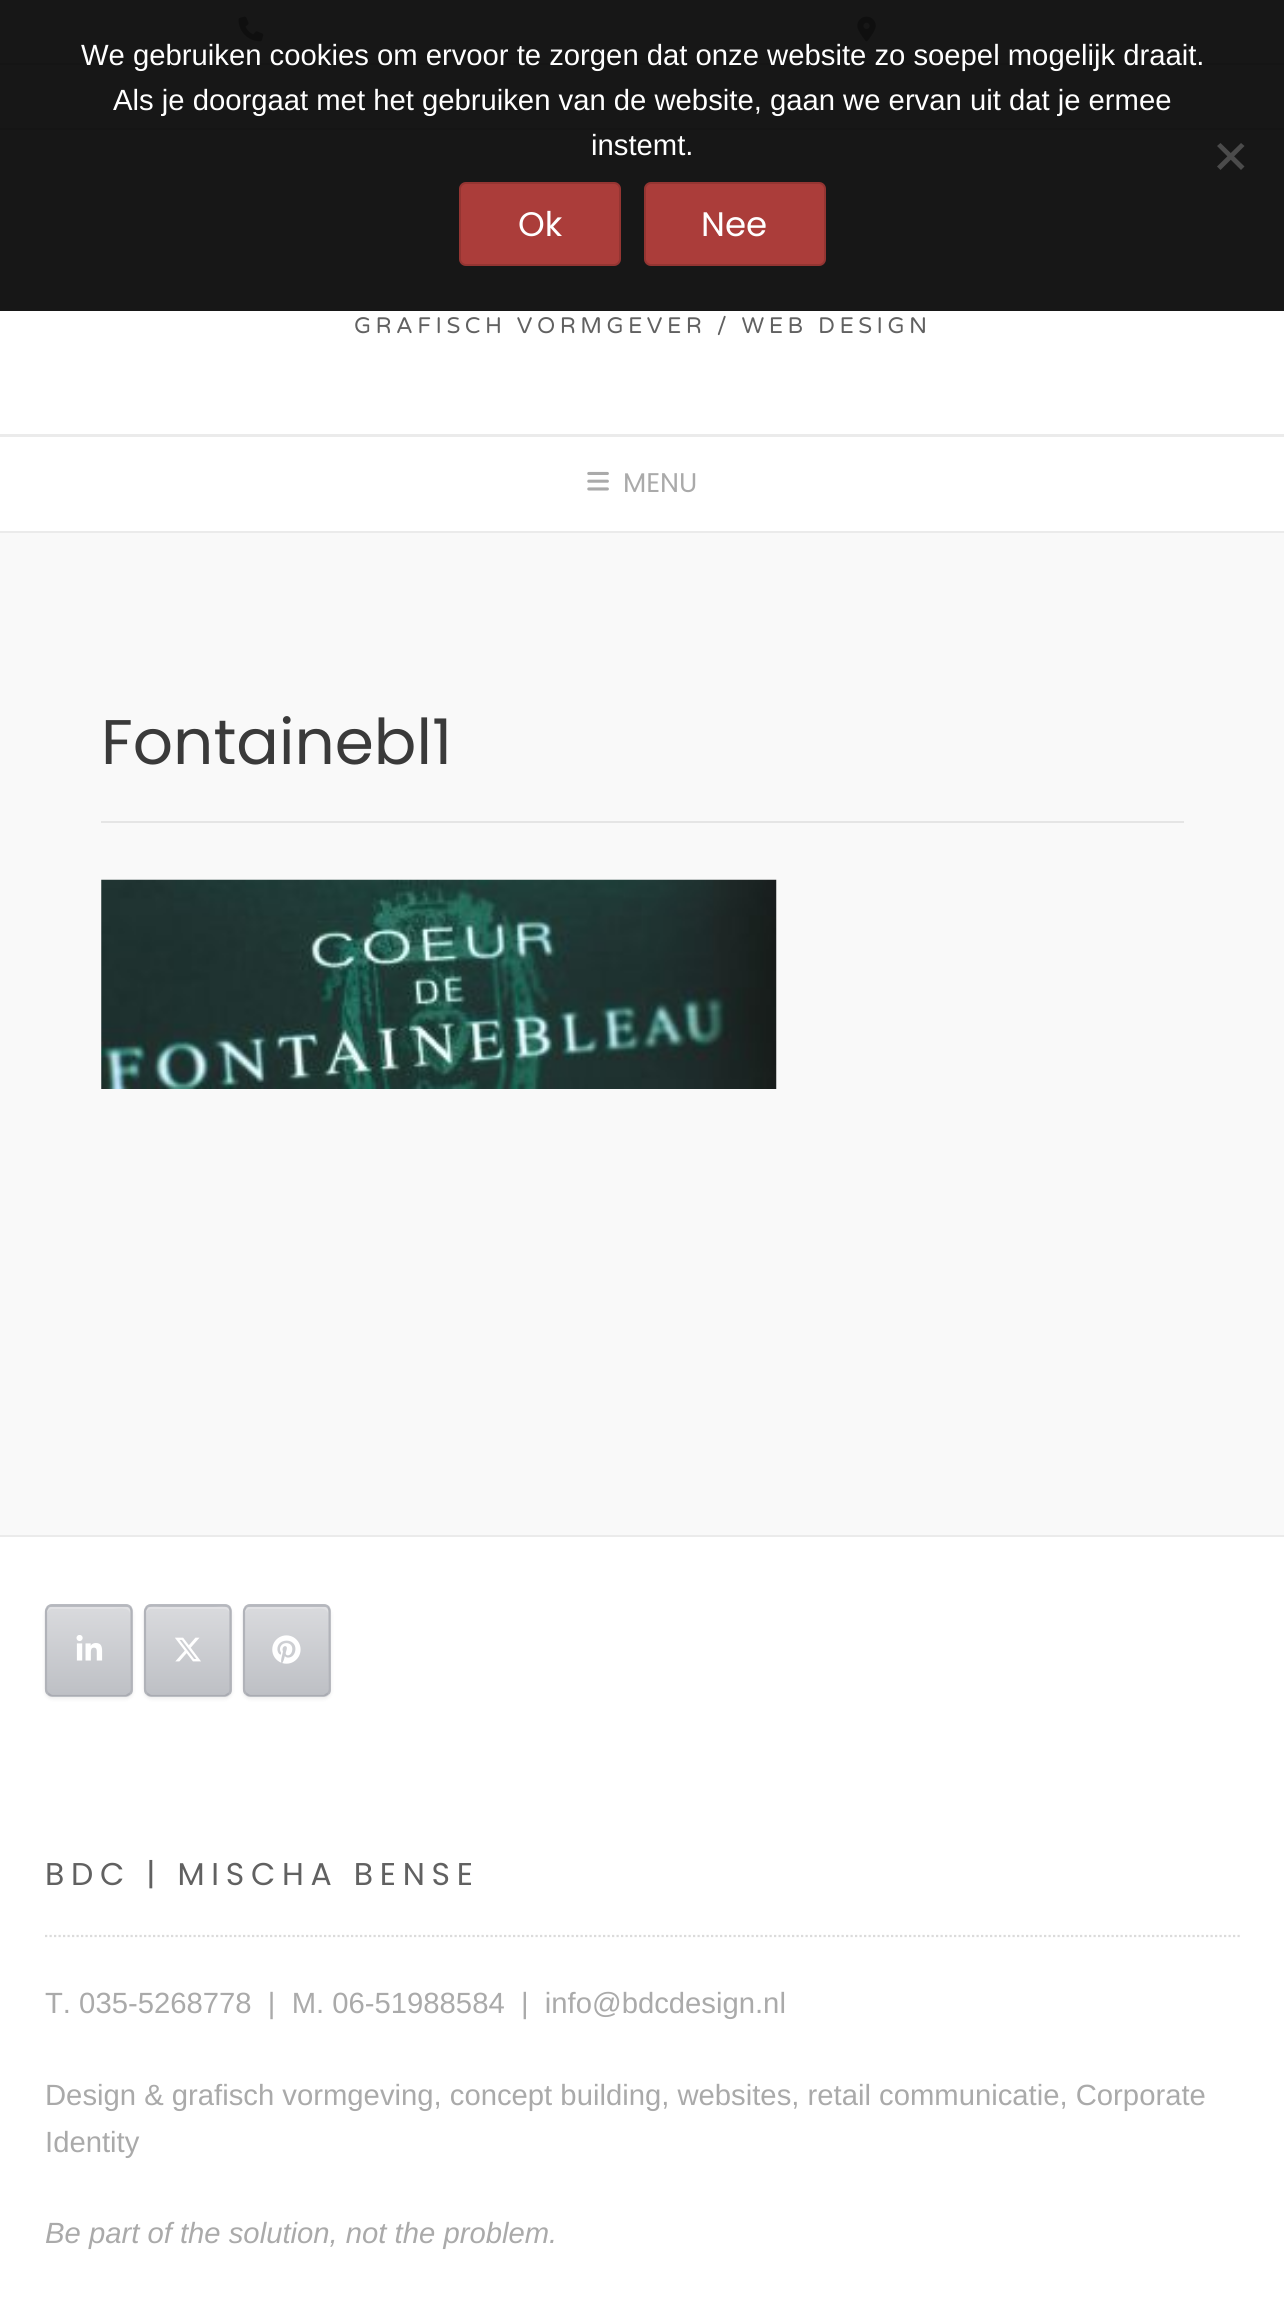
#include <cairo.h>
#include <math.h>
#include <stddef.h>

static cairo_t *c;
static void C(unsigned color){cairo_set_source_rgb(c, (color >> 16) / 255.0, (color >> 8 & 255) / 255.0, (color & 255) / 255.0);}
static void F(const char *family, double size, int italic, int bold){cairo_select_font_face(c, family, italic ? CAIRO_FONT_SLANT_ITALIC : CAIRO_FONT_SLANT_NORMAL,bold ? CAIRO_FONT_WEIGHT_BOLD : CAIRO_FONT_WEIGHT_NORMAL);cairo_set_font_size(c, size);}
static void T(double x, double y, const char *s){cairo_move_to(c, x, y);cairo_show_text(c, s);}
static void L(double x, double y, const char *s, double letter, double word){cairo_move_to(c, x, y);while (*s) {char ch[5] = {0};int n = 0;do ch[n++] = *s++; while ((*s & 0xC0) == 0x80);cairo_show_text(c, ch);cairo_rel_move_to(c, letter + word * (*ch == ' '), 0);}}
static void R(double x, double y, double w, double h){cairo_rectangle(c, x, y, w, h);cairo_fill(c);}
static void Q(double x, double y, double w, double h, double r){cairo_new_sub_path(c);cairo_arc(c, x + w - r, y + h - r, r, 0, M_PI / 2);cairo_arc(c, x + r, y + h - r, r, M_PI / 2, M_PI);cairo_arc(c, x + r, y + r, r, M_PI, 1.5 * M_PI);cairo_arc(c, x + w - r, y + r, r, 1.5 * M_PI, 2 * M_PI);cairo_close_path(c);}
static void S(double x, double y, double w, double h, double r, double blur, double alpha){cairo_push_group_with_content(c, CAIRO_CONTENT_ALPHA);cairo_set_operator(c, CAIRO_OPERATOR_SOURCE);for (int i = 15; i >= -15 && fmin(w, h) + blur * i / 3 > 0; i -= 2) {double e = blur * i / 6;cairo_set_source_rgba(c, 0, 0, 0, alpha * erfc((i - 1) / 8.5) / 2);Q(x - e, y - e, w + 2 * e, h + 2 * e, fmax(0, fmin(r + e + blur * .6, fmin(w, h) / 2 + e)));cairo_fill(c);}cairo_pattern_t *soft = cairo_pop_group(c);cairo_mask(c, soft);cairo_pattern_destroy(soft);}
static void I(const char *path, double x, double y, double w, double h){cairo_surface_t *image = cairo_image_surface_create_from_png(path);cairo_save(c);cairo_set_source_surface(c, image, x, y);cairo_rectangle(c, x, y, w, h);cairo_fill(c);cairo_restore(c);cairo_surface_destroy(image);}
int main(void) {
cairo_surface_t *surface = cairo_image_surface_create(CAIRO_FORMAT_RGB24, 1284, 2307);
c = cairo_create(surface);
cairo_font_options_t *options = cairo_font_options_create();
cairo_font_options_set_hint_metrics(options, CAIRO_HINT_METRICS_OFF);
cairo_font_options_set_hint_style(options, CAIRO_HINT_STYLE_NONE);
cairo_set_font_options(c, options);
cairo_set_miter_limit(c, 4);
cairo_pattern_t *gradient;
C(0xf9f9f9);
cairo_paint(c);
C(0xffffff);
R(0,0,1284,63);
C(0xebebeb);
R(0,63,1284,2);
I("1.png",238,16,26,26);
I("2.png",857,16,19,26);
C(0xffffff);
R(0,65,1284,466);
C(0xebebeb);
R(0,128,1284,2);
cairo_set_source_rgba(c,0,0,0,0.91);
R(0,0,1284,311);
F("Liberation Sans",29.25,0,0);
C(0xffffff);
T(81,65,"We gebruiken cookies om ervoor te zorgen dat onze website zo soepel mogelijk draait.");
T(113,110,"Als je doorgaat met het gebruiken van de website, gaan we ervan uit dat je ermee");
T(591,155,"instemt.");
C(0x4b4b4b);
cairo_new_path(c);
cairo_move_to(c,1241,143);
cairo_line_to(c,1244.5,146);
cairo_line_to(c,1220.5,170);
cairo_line_to(c,1217,166.5);
cairo_close_path(c);
cairo_fill(c);
cairo_new_path(c);
cairo_move_to(c,1217,146);
cairo_line_to(c,1220.5,143);
cairo_line_to(c,1244.5,166.5);
cairo_line_to(c,1241,170);
cairo_close_path(c);
cairo_fill(c);
C(0xab3d3a);
Q(459,182,162,84,7);
cairo_fill(c);
Q(460,183,160,82,6);
cairo_set_source_rgba(c,0,0,0,0.14);
cairo_stroke(c);
F("Poppins",34,0,0);
C(0xffffff);
T(518,236,"Ok");
C(0xab3d3a);
Q(644,182,182,84,7);
cairo_fill(c);
Q(645,183,180,82,6);
cairo_set_source_rgba(c,0,0,0,0.14);
cairo_stroke(c);
C(0xffffff);
T(701,236,"Nee");
C(0xebebeb);
R(0,531,1284,2);
cairo_new_path(c);
cairo_move_to(c,0,434);
cairo_line_to(c,0,437);
cairo_line_to(c,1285,437);
cairo_line_to(c,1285,133);
cairo_line_to(c,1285,434);
cairo_close_path(c);
cairo_fill(c);
F("Varela Round",22.5,0,0);
C(0x616161);
L(354,333,"GRAFISCH VORMGEVER / WEB DESIGN",4.5,0);
I("3.png",587,471,22,20);
F("Poppins",27,0,0);
C(0xaaaaaa);
T(623,492,"MENU");
C(0xe5e5e5);
R(101,821,1083,2);
F("Poppins",63,0,0);
C(0x3a3a3a);
T(101,764,"Fontainebl1");
I("4.png",101,879,676,210);
C(0xffffff);
R(0,1537,1284,770);
C(0xebebeb);
R(0,1535,1284,2);
C(0x000000);
S(45,1607,88,92,7,2,.07);
cairo_save(c);
Q(45,1604,88,93,7);
cairo_clip(c);
gradient = cairo_pattern_create_linear(47,1607,47,1519);
cairo_pattern_add_color_stop_rgba(gradient,0,0.745,0.753,0.773,1);
cairo_pattern_add_color_stop_rgba(gradient,1,0.851,0.855,0.867,1);
cairo_set_source(c,gradient);
cairo_pattern_destroy(gradient);
R(45,1604,88,3);
gradient = cairo_pattern_create_linear(47,1694,47,1607);
cairo_pattern_add_color_stop_rgba(gradient,0,0.745,0.753,0.773,1);
cairo_pattern_add_color_stop_rgba(gradient,1,0.851,0.855,0.867,1);
cairo_set_source(c,gradient);
cairo_pattern_destroy(gradient);
R(45,1607,88,87);
gradient = cairo_pattern_create_linear(47,1782,47,1694);
cairo_pattern_add_color_stop_rgba(gradient,0,0.745,0.753,0.773,1);
cairo_pattern_add_color_stop_rgba(gradient,1,0.851,0.855,0.867,1);
cairo_set_source(c,gradient);
cairo_pattern_destroy(gradient);
R(45,1694,88,3);
cairo_restore(c);
cairo_set_source_rgba(c,1,1,1,0.2);
cairo_new_path(c);
cairo_move_to(c,52,1609);
cairo_line_to(c,113,1609);
cairo_curve_to(c,116,1609,130,1606,130,1614);
cairo_line_to(c,130,1692);
cairo_curve_to(c,131,1691,131,1690,131,1689);
cairo_line_to(c,131,1612);
cairo_curve_to(c,131,1609,129,1607,126,1607);
cairo_line_to(c,52,1607);
cairo_curve_to(c,49,1607,47,1609,47,1612);
cairo_line_to(c,47,1614);
cairo_curve_to(c,47,1611,50,1609,52,1609);
cairo_close_path(c);
cairo_fill(c);
cairo_new_path(c);
cairo_move_to(c,48,1607);
cairo_curve_to(c,49,1606,50.5,1605.5,52.5,1605.5);
cairo_line_to(c,125.5,1605.5);
cairo_curve_to(c,127,1605.5,128.5,1606,130,1607);
C(0xb6b8be);
cairo_set_line_width(c,2.2);
cairo_stroke(c);
cairo_new_path(c);
cairo_move_to(c,130,1607);
cairo_curve_to(c,131,1608.5,131.5,1610,131.5,1611.5);
cairo_line_to(c,131.5,1689);
cairo_curve_to(c,131.5,1691,131,1692.5,130,1693.5);
C(0xb1b3b9);
cairo_stroke(c);
cairo_new_path(c);
cairo_move_to(c,130,1693.5);
cairo_curve_to(c,128.5,1694.5,127,1695.5,125.5,1695.5);
cairo_line_to(c,52.5,1695.5);
cairo_curve_to(c,50.5,1695.5,49,1694.5,48,1693.5);
C(0xa9abb2);
cairo_stroke(c);
cairo_new_path(c);
cairo_move_to(c,48,1693.5);
cairo_curve_to(c,47,1692.5,46,1691,46,1689);
cairo_line_to(c,46,1611.5);
cairo_curve_to(c,46,1610,47,1608.5,48,1607);
C(0xb1b3b9);
cairo_stroke(c);
I("5.png",76,1635,27,26);
C(0x000000);
S(144,1607,88,92,7,2,.07);
cairo_save(c);
Q(144,1604,88,93,7);
cairo_clip(c);
gradient = cairo_pattern_create_linear(146,1607,146,1519);
cairo_pattern_add_color_stop_rgba(gradient,0,0.745,0.753,0.773,1);
cairo_pattern_add_color_stop_rgba(gradient,1,0.851,0.855,0.867,1);
cairo_set_source(c,gradient);
cairo_pattern_destroy(gradient);
R(144,1604,88,3);
gradient = cairo_pattern_create_linear(146,1694,146,1607);
cairo_pattern_add_color_stop_rgba(gradient,0,0.745,0.753,0.773,1);
cairo_pattern_add_color_stop_rgba(gradient,1,0.851,0.855,0.867,1);
cairo_set_source(c,gradient);
cairo_pattern_destroy(gradient);
R(144,1607,88,87);
gradient = cairo_pattern_create_linear(146,1782,146,1694);
cairo_pattern_add_color_stop_rgba(gradient,0,0.745,0.753,0.773,1);
cairo_pattern_add_color_stop_rgba(gradient,1,0.851,0.855,0.867,1);
cairo_set_source(c,gradient);
cairo_pattern_destroy(gradient);
R(144,1694,88,3);
cairo_restore(c);
C(0xe1e1e4);
cairo_new_path(c);
cairo_move_to(c,151,1609);
cairo_line_to(c,224,1609);
cairo_curve_to(c,227,1609,230,1611,230,1614);
cairo_curve_to(c,230,1604,221,1607,213,1607);
cairo_line_to(c,163,1607);
cairo_curve_to(c,155,1607,146,1604,146,1614);
cairo_curve_to(c,146,1611,149,1609,151,1609);
cairo_close_path(c);
cairo_fill(c);
cairo_new_path(c);
cairo_move_to(c,147,1607);
cairo_curve_to(c,148,1606,149.5,1605.5,151.5,1605.5);
cairo_line_to(c,224.5,1605.5);
cairo_curve_to(c,226,1605.5,227.5,1606,229,1607);
C(0xb6b8be);
cairo_stroke(c);
cairo_new_path(c);
cairo_move_to(c,229,1607);
cairo_curve_to(c,230,1608.5,230.5,1610,230.5,1611.5);
cairo_line_to(c,230.5,1689);
cairo_curve_to(c,230.5,1691,230,1692.5,229,1693.5);
C(0xb1b3b9);
cairo_stroke(c);
cairo_new_path(c);
cairo_move_to(c,229,1693.5);
cairo_curve_to(c,227.5,1694.5,226,1695.5,224.5,1695.5);
cairo_line_to(c,151.5,1695.5);
cairo_curve_to(c,149.5,1695.5,148,1694.5,147,1693.5);
C(0xa9abb2);
cairo_stroke(c);
cairo_new_path(c);
cairo_move_to(c,147,1693.5);
cairo_curve_to(c,146,1692.5,145,1691,145,1689);
cairo_line_to(c,145,1611.5);
cairo_curve_to(c,145,1610,146,1608.5,147,1607);
C(0xb1b3b9);
cairo_stroke(c);
I("6.png",175,1637,26,25);
C(0x000000);
S(243,1607,88,92,7,2,.07);
cairo_save(c);
Q(243,1604,88,93,7);
cairo_clip(c);
gradient = cairo_pattern_create_linear(245,1607,245,1519);
cairo_pattern_add_color_stop_rgba(gradient,0,0.745,0.753,0.773,1);
cairo_pattern_add_color_stop_rgba(gradient,1,0.851,0.855,0.867,1);
cairo_set_source(c,gradient);
cairo_pattern_destroy(gradient);
R(243,1604,88,3);
gradient = cairo_pattern_create_linear(245,1694,245,1607);
cairo_pattern_add_color_stop_rgba(gradient,0,0.745,0.753,0.773,1);
cairo_pattern_add_color_stop_rgba(gradient,1,0.851,0.855,0.867,1);
cairo_set_source(c,gradient);
cairo_pattern_destroy(gradient);
R(243,1607,88,87);
gradient = cairo_pattern_create_linear(245,1782,245,1694);
cairo_pattern_add_color_stop_rgba(gradient,0,0.745,0.753,0.773,1);
cairo_pattern_add_color_stop_rgba(gradient,1,0.851,0.855,0.867,1);
cairo_set_source(c,gradient);
cairo_pattern_destroy(gradient);
R(243,1694,88,3);
cairo_restore(c);
cairo_set_source_rgba(c,1,1,1,0.2);
cairo_new_path(c);
cairo_move_to(c,250,1609);
cairo_line_to(c,311,1609);
cairo_curve_to(c,314,1609,328,1606,328,1614);
cairo_line_to(c,328,1692);
cairo_curve_to(c,329,1691,329,1690,329,1689);
cairo_line_to(c,329,1612);
cairo_curve_to(c,329,1609,327,1607,324,1607);
cairo_line_to(c,250,1607);
cairo_curve_to(c,247,1607,245,1609,245,1612);
cairo_line_to(c,245,1614);
cairo_curve_to(c,245,1611,248,1609,250,1609);
cairo_close_path(c);
cairo_fill(c);
cairo_new_path(c);
cairo_move_to(c,246,1607);
cairo_curve_to(c,247,1606,248.5,1605.5,250.5,1605.5);
cairo_line_to(c,323.5,1605.5);
cairo_curve_to(c,325,1605.5,326.5,1606,328,1607);
C(0xb6b8be);
cairo_stroke(c);
cairo_new_path(c);
cairo_move_to(c,328,1607);
cairo_curve_to(c,329,1608.5,329.5,1610,329.5,1611.5);
cairo_line_to(c,329.5,1689);
cairo_curve_to(c,329.5,1691,329,1692.5,328,1693.5);
C(0xb1b3b9);
cairo_stroke(c);
cairo_new_path(c);
cairo_move_to(c,328,1693.5);
cairo_curve_to(c,326.5,1694.5,325,1695.5,323.5,1695.5);
cairo_line_to(c,250.5,1695.5);
cairo_curve_to(c,248.5,1695.5,247,1694.5,246,1693.5);
C(0xa9abb2);
cairo_stroke(c);
cairo_new_path(c);
cairo_move_to(c,246,1693.5);
cairo_curve_to(c,245,1692.5,244,1691,244,1689);
cairo_line_to(c,244,1611.5);
cairo_curve_to(c,244,1610,245,1608.5,246,1607);
C(0xb1b3b9);
cairo_stroke(c);
I("7.png",272,1635,29,29);
cairo_new_path(c);
cairo_move_to(c,45,1936);
cairo_line_to(c,1240,1936);
C(0xdbdbdb);
cairo_set_dash(c,(double[]){2.25,2.25},2,0);
cairo_stroke(c);
F("Poppins",31.5,0,0);
C(0x616161);
L(45,1885,"BDC | MISCHA BENSE",6.75,0);
F("Liberation Sans",29.25,0,0);
C(0xaaaaaa);
T(45,2013,"T. 035-5268778  |  M. 06-51988584  |  info@bdcdesign.nl");
T(45,2105,"Design & grafisch vormgeving, concept building, websites, retail communicatie, Corporate");
T(45,2152,"Identity");
F("Liberation Sans",29.25,1,0);
T(45,2243,"Be part of the solution, not the problem.");
cairo_surface_write_to_png(surface, "o.png");
cairo_font_options_destroy(options);
cairo_destroy(c);
cairo_surface_destroy(surface);
return 0;
}
